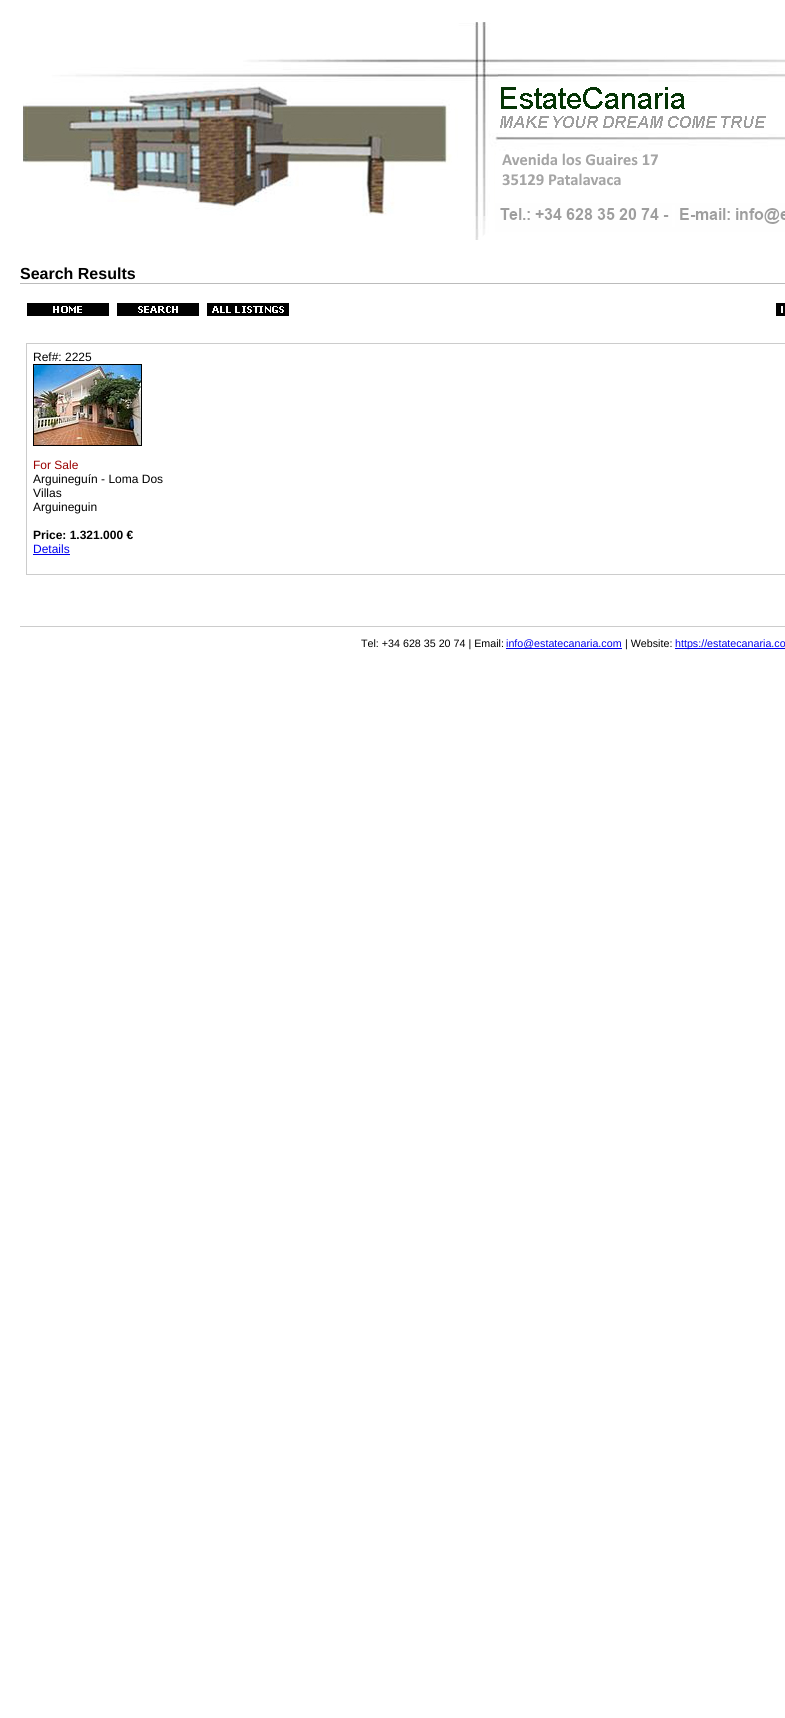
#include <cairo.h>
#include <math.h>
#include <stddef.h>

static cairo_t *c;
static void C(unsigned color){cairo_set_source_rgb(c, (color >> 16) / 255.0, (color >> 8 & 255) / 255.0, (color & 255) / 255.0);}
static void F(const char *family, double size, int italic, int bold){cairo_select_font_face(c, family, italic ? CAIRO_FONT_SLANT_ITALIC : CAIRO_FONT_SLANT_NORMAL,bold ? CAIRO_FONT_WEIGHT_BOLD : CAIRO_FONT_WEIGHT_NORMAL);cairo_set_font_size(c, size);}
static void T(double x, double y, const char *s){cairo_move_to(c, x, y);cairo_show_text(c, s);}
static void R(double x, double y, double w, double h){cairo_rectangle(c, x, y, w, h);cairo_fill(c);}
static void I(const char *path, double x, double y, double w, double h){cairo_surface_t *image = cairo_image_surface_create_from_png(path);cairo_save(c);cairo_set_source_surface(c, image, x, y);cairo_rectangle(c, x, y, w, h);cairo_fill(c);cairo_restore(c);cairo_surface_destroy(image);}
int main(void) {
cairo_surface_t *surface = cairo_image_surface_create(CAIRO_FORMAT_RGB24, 785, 1718);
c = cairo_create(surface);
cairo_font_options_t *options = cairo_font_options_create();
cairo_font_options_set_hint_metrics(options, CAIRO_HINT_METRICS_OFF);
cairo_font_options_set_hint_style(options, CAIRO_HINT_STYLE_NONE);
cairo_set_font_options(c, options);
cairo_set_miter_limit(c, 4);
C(0xffffff);
cairo_paint(c);
I("1.png",23,22,762,218);
C(0xbbbbbb);
R(20,283,765,1);
F("Liberation Sans",16,0,1);
C(0x000000);
T(20,279,"Search Results");
I("2.png",27,303,82,13);
I("3.png",117,303,82,13);
I("4.png",207,303,82,13);
I("5.png",776,303,9,13);
cairo_rectangle(c,26.5,343.5,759,231);
C(0xcccccc);
cairo_set_line_width(c,1);
cairo_stroke(c);
F("Liberation Sans",12,0,0);
C(0x000000);
T(33,361,"Ref#: 2225");
cairo_rectangle(c,33.5,364.5,108,81);
cairo_stroke(c);
I("6.png",34,365,107,80);
C(0x990000);
T(33,469,"For Sale");
C(0x000000);
T(33,483,"Arguineguín - Loma Dos");
T(33,497,"Villas");
T(33,511,"Arguineguin");
F("Liberation Sans",12,0,1);
T(33,539,"Price: 1.321.000 €");
F("Liberation Sans",12,0,0);
C(0x0000ee);
T(33,553,"Details");
R(33,554,37,1);
C(0xcccccc);
R(20,626,765,1);
F("Liberation Sans",10.7,0,0);
C(0x000000);
T(361,647,"Tel: +34 628 35 20 74 | Email:");
C(0x0000ee);
R(506,648,116,1);
T(506,647,"info@estatecanaria.com");
C(0x000000);
T(625,647,"| Website:");
C(0x0000ee);
R(675,648,110,1);
T(675,647,"https://estatecanaria.co");
cairo_surface_write_to_png(surface, "o.png");
cairo_font_options_destroy(options);
cairo_destroy(c);
cairo_surface_destroy(surface);
return 0;
}
